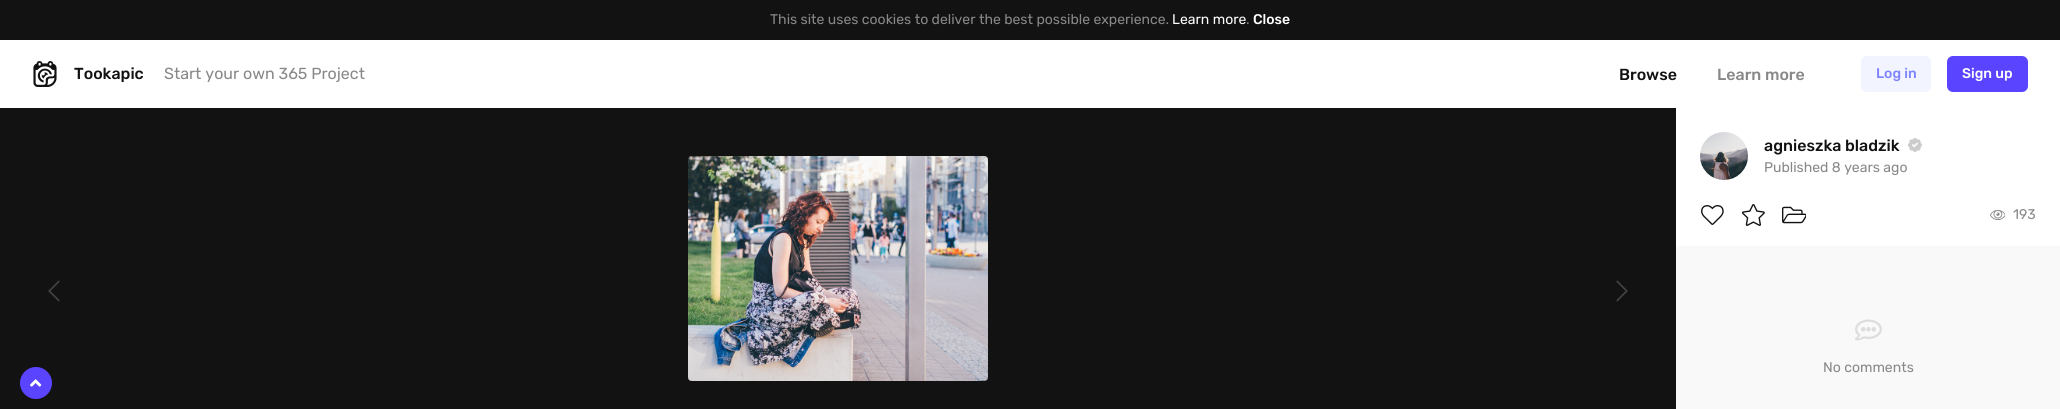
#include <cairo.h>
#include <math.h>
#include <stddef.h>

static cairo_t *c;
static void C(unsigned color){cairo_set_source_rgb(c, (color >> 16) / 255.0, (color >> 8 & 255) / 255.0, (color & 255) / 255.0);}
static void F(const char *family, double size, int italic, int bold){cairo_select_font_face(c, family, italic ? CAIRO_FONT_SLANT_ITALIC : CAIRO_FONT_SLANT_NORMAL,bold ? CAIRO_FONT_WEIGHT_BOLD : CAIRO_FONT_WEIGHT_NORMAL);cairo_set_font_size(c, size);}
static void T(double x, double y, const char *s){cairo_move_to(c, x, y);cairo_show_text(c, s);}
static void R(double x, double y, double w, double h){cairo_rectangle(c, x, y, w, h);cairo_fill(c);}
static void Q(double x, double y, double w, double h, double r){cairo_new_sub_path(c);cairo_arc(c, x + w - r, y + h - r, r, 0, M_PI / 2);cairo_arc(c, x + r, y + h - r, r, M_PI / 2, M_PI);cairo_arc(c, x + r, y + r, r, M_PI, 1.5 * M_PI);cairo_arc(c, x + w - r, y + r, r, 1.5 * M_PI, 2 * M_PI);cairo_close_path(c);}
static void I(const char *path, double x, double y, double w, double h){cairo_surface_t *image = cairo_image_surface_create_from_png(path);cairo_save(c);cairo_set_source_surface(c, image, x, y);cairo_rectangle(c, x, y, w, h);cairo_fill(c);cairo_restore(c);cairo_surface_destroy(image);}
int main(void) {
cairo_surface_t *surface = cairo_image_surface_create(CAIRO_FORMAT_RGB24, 2060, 409);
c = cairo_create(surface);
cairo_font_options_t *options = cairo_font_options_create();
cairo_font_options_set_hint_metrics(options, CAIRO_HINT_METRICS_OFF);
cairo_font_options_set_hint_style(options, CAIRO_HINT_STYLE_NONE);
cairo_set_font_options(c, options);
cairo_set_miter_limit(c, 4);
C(0xffffff);
cairo_paint(c);
C(0x121212);
R(0,0,2060,40);
F("Rubik",14,0,0);
C(0x888888);
T(770,24,"This site uses cookies to deliver the best possible experience.");
C(0xffffff);
T(1172,24,"Learn more");
C(0x888888);
T(1246,24,".");
F("Rubik Medium",14,0,0);
C(0xffffff);
T(1253,24,"Close");
I("1.png",33,61,24,26);
F("Rubik Medium",16,0,0);
C(0x121212);
T(74,79,"Tookapic");
F("Rubik",16,0,0);
C(0x888888);
T(164,79,"Start your own 365 Project");
F("Rubik Medium",16,0,0);
C(0x121212);
T(1619,80,"Browse");
C(0x888888);
T(1717,80,"Learn more");
C(0xf2f4ff);
Q(1861,56,70,36,6);
cairo_fill(c);
F("Rubik Medium",14,0,0);
C(0x7e84ff);
T(1876,78,"Log in");
C(0x5a44ff);
Q(1947,56,81,36,6);
cairo_fill(c);
C(0xffffff);
T(1962,78,"Sign up");
C(0x121212);
R(0,108,1676,301);
I("2.png",48,280,12,22);
I("3.png",688,156,300,225);
I("4.png",1616,280,12,22);
I("5.png",1700,132,48,48);
F("Rubik Medium",16,0,0);
T(1764,151,"agnieszka bladzik");
I("6.png",1908,138,14,14);
F("Rubik",14,0,0);
C(0x888888);
T(1764,172,"Published 8 years ago");
I("7.png",1701,205,23,20);
I("8.png",1741,204,24,22);
I("9.png",1782,206,24,18);
I("10.png",1990,210,15,10);
T(2013,219,"193");
C(0xf9f9f9);
R(1676,246,384,163);
I("11.png",1855,319,27,22);
C(0x888888);
T(1823,372,"No comments");
C(0x5a44ff);
cairo_new_path(c);
cairo_arc(c,36,383,16,0,2 * M_PI);
cairo_fill(c);
I("12.png",30,379,12,8);
cairo_surface_write_to_png(surface, "o.png");
cairo_font_options_destroy(options);
cairo_destroy(c);
cairo_surface_destroy(surface);
return 0;
}
